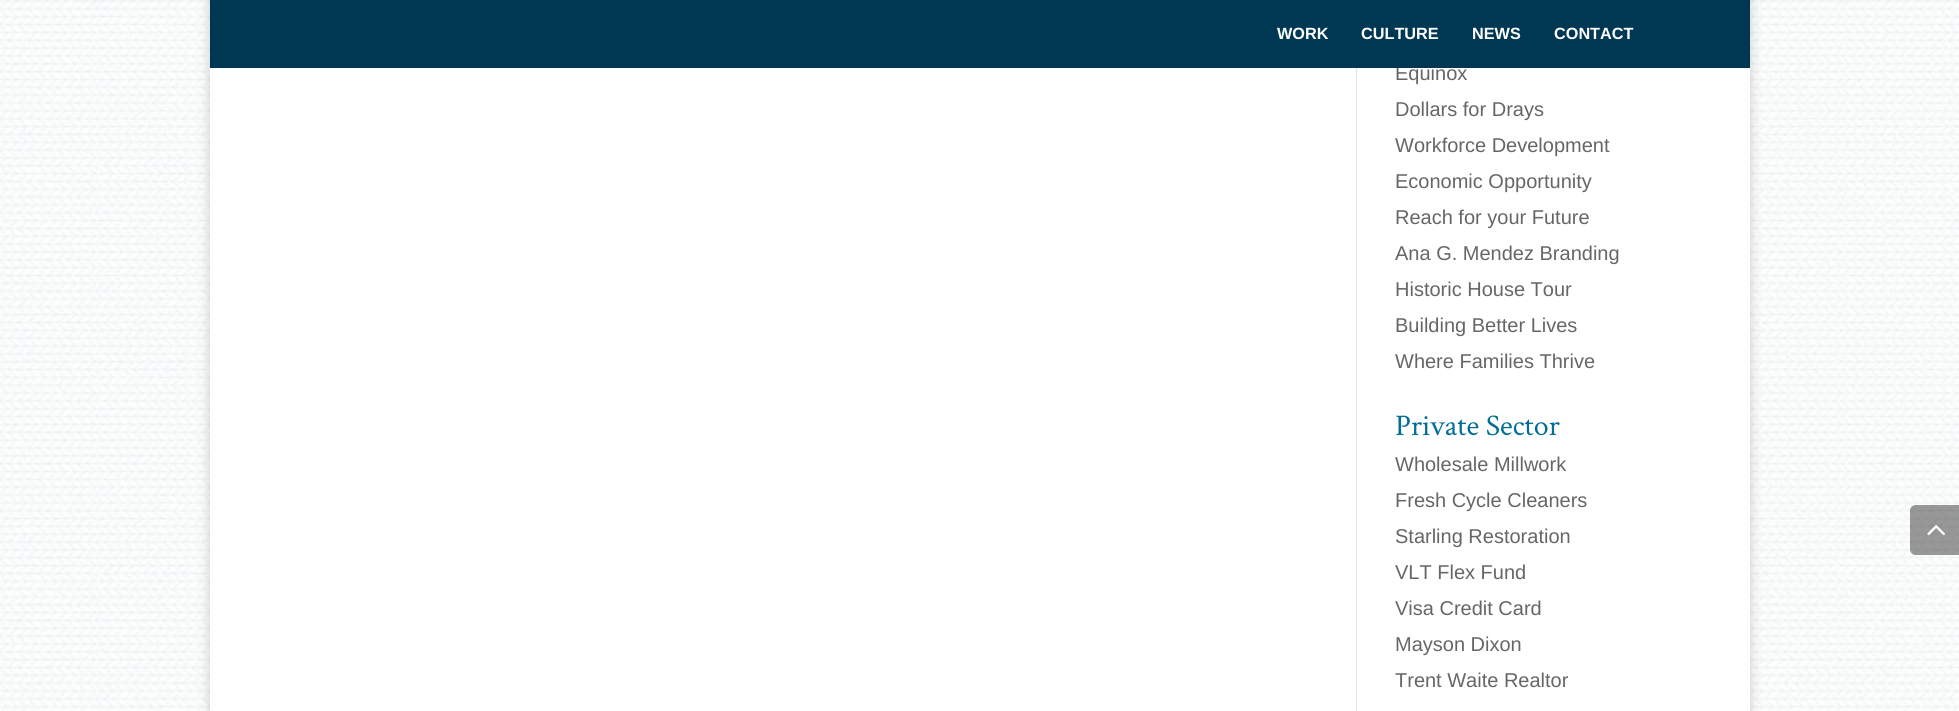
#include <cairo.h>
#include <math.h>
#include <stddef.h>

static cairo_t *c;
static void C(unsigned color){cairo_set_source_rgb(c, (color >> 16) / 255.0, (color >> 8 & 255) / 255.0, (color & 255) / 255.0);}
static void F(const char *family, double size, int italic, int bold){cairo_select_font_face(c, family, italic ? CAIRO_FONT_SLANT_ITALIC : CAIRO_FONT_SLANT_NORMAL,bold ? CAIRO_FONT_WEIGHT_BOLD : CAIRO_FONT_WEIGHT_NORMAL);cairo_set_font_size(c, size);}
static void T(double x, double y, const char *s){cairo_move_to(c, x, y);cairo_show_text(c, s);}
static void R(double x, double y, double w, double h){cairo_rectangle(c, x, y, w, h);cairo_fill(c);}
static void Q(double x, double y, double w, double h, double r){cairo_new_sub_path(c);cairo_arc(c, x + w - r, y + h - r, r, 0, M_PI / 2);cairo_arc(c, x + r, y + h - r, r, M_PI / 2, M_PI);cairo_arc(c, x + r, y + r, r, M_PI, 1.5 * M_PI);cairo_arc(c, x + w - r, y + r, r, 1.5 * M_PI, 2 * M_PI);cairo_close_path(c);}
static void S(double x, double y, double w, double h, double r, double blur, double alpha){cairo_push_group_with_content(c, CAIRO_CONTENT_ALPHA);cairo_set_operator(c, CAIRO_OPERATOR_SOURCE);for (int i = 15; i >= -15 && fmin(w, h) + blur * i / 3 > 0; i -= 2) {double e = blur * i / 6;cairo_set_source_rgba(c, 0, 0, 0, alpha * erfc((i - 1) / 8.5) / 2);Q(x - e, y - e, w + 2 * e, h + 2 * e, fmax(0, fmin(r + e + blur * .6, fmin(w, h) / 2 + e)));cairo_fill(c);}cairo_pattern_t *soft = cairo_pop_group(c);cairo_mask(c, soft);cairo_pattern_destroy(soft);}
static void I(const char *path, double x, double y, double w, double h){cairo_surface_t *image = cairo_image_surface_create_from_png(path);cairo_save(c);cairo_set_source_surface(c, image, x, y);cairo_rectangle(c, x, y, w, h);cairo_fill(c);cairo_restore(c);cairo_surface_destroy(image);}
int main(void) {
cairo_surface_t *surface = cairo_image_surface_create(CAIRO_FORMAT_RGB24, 1959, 711);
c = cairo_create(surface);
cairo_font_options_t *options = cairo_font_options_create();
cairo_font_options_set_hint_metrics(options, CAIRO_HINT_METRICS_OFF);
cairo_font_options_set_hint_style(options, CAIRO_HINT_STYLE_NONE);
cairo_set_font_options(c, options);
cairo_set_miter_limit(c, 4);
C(0xffffff);
cairo_paint(c);
I("1.png",0,0,1959,711);
C(0x000000);
S(210,-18,1540,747,0,6,.2);
C(0xffffff);
R(210,68,1540,643);
F("Liberation Sans",20,0,0);
C(0x666666);
T(1395,80,"Equinox");
C(0x003854);
R(210,0,1540,68);
F("Liberation Sans",16.25,0,1);
C(0xffffff);
T(1277,39,"WORK");
T(1361,39,"CULTURE");
T(1472,39,"NEWS");
T(1554,39,"CONTACT");
C(0xe2e2e2);
R(1356,68,1,643);
F("Liberation Sans",20,0,0);
C(0x666666);
T(1395,116,"Dollars for Drays");
T(1395,152,"Workforce Development");
T(1395,188,"Economic Opportunity");
T(1395,224,"Reach for your Future");
T(1395,260,"Ana G. Mendez Branding");
T(1395,296,"Historic House Tour");
T(1395,332,"Building Better Lives");
T(1395,368,"Where Families Thrive");
F("Crimson Text",30,0,0);
C(0x016e96);
T(1395,435,"Private Sector");
F("Liberation Sans",20,0,0);
C(0x666666);
T(1395,471,"Wholesale Millwork");
T(1395,507,"Fresh Cycle Cleaners");
T(1395,543,"Starling Restoration");
T(1395,579,"VLT Flex Fund");
T(1395,615,"Visa Credit Card");
T(1395,651,"Mayson Dixon");
T(1395,687,"Trent Waite Realtor");
cairo_set_source_rgba(c,0,0,0,0.4);
cairo_new_path(c);
cairo_move_to(c,1916,505);
cairo_line_to(c,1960,505);
cairo_line_to(c,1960,555);
cairo_line_to(c,1916,555);
cairo_curve_to(c,1912.5,555,1910,552.5,1910,549);
cairo_line_to(c,1910,511);
cairo_curve_to(c,1910,507.5,1912.5,505,1916,505);
cairo_close_path(c);
cairo_fill(c);
I("2.png",1927,525,18,11);
cairo_surface_write_to_png(surface, "o.png");
cairo_font_options_destroy(options);
cairo_destroy(c);
cairo_surface_destroy(surface);
return 0;
}
